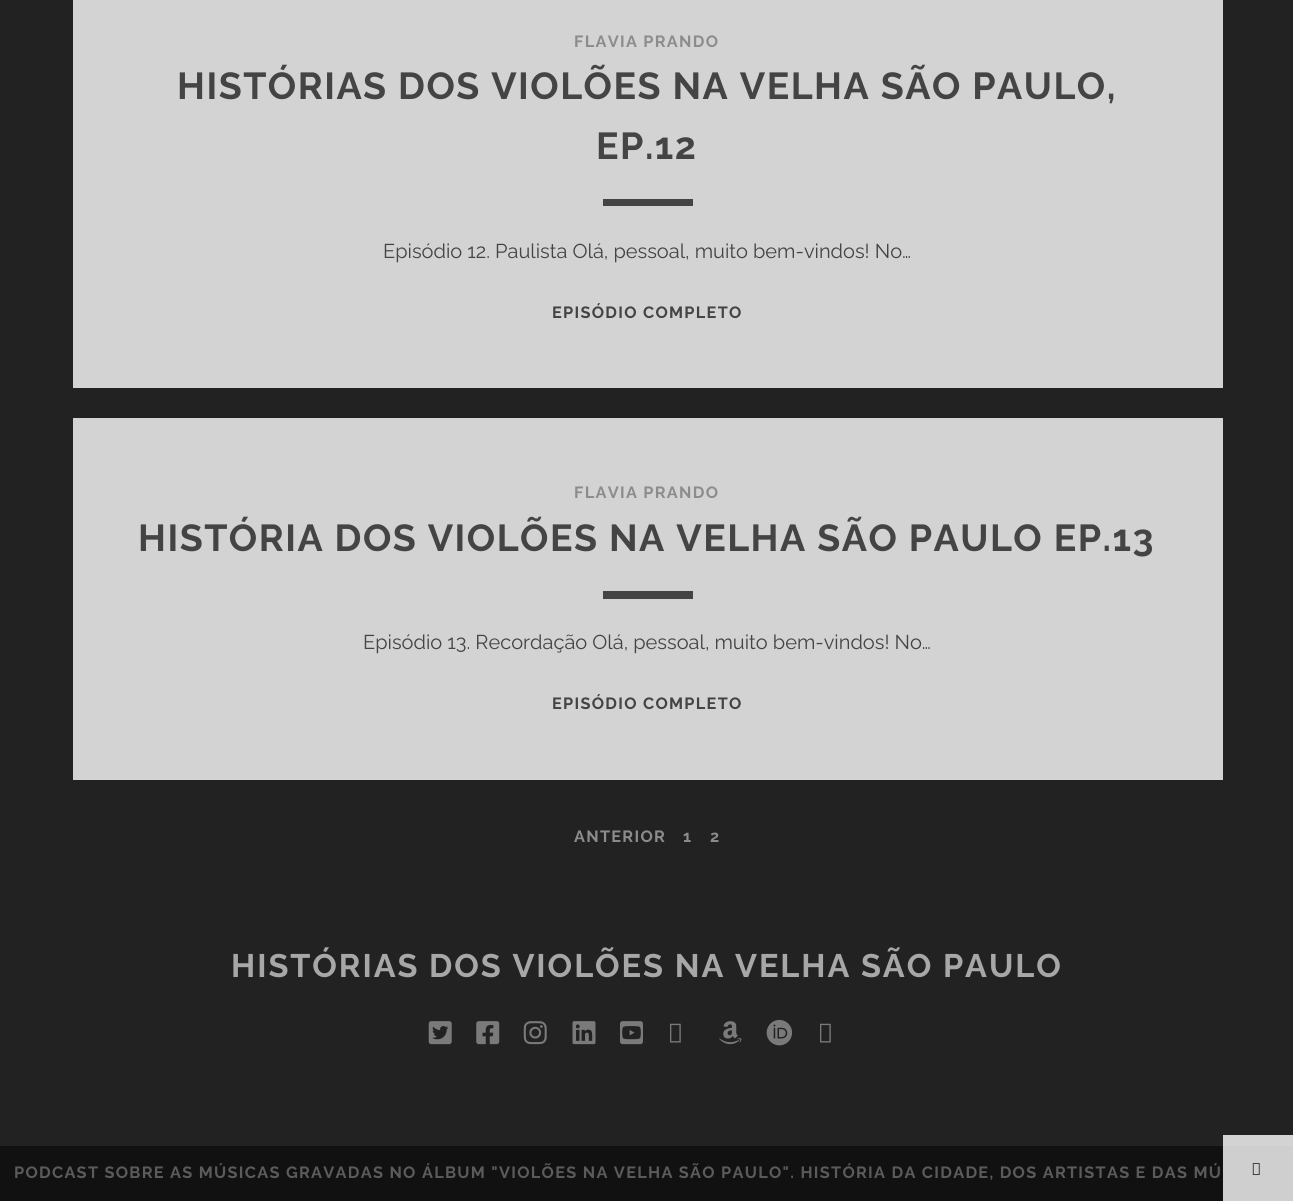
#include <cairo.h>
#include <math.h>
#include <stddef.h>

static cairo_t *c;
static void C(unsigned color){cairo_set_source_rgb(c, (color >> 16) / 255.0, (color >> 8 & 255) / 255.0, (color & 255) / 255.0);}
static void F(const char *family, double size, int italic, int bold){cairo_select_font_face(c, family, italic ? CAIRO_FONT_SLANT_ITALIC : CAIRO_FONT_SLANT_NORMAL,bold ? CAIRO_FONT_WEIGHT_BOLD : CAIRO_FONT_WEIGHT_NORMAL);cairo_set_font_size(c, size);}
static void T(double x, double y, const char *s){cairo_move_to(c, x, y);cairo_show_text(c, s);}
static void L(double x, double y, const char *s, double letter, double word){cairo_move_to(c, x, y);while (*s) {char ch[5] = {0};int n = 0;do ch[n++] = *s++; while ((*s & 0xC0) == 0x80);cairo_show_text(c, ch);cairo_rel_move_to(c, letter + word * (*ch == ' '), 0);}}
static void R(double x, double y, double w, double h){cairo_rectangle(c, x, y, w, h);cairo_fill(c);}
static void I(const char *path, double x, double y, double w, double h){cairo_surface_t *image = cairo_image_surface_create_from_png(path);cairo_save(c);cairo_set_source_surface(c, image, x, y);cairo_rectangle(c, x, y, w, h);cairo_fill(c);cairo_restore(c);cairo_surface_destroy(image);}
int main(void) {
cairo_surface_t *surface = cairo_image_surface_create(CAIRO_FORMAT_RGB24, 1293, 1201);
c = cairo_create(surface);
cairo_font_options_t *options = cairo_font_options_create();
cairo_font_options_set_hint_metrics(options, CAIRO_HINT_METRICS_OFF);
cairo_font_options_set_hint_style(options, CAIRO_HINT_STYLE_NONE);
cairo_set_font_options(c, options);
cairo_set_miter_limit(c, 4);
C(0x222222);
cairo_paint(c);
C(0xd3d3d3);
R(73,0,1150,388);
F("Raleway",16.25,0,1);
C(0x8c8c8c);
L(574,47,"FLAVIA PRANDO",1.3,0);
F("Raleway",37.5,0,1);
C(0x444444);
L(177,99,"HISTÓRIAS DOS VIOLÕES NA VELHA SÃO PAULO,",1.5,0);
L(596,159,"EP.12",1.5,0);
R(603,199,90,7);
F("Raleway",20,0,0);
T(383,258,"Episódio 12. Paulista Olá, pessoal, muito bem-vindos! No…");
F("Raleway",16.25,0,1);
L(552,318,"EPISÓDIO COMPLETO",1.3,0);
C(0xd3d3d3);
R(73,418,1150,362);
C(0x8c8c8c);
L(574,498,"FLAVIA PRANDO",1.3,0);
F("Raleway",37.5,0,1);
C(0x444444);
L(138,551,"HISTÓRIA DOS VIOLÕES NA VELHA SÃO PAULO EP.13",1.5,0);
R(603,591,90,8);
F("Raleway",20,0,0);
T(363,649,"Episódio 13. Recordação Olá, pessoal, muito bem-vindos! No…");
F("Raleway",16.25,0,1);
L(552,709,"EPISÓDIO COMPLETO",1.3,0);
C(0x8c8c8c);
L(574,842,"ANTERIOR",1.3,0);
L(683,842,"1",1.3,0);
L(710,842,"2",1.3,0);
F("Raleway",32.5,0,1);
C(0xa7a7a7);
L(231,977,"HISTÓRIAS DOS VIOLÕES NA VELHA SÃO PAULO",1.95,0);
I("1.png",428,1021,24,24);
I("2.png",476,1021,24,24);
I("3.png",523,1021,24,24);
I("4.png",572,1021,24,24);
I("5.png",620,1021,23,24);
I("6.png",670,1023,11,20);
I("7.png",719,1021,23,24);
I("8.png",766,1019,27,27);
I("6.png",820,1023,11,20);
C(0x111111);
R(0,1146,1293,55);
F("Raleway",16.25,0,1);
C(0x5b5b5b);
L(14,1178,"PODCAST SOBRE AS MÚSICAS GRAVADAS NO ÁLBUM \"VIOLÕES NA VELHA SÃO PAULO\". HISTÓRIA DA CIDADE, DOS ARTISTAS E DAS MÚ",1.3,0);
cairo_set_source_rgba(c,1,1,1,0.8);
R(1223,1135,70,66);
I("9.png",1252,1163,8,12);
cairo_surface_write_to_png(surface, "o.png");
cairo_font_options_destroy(options);
cairo_destroy(c);
cairo_surface_destroy(surface);
return 0;
}
